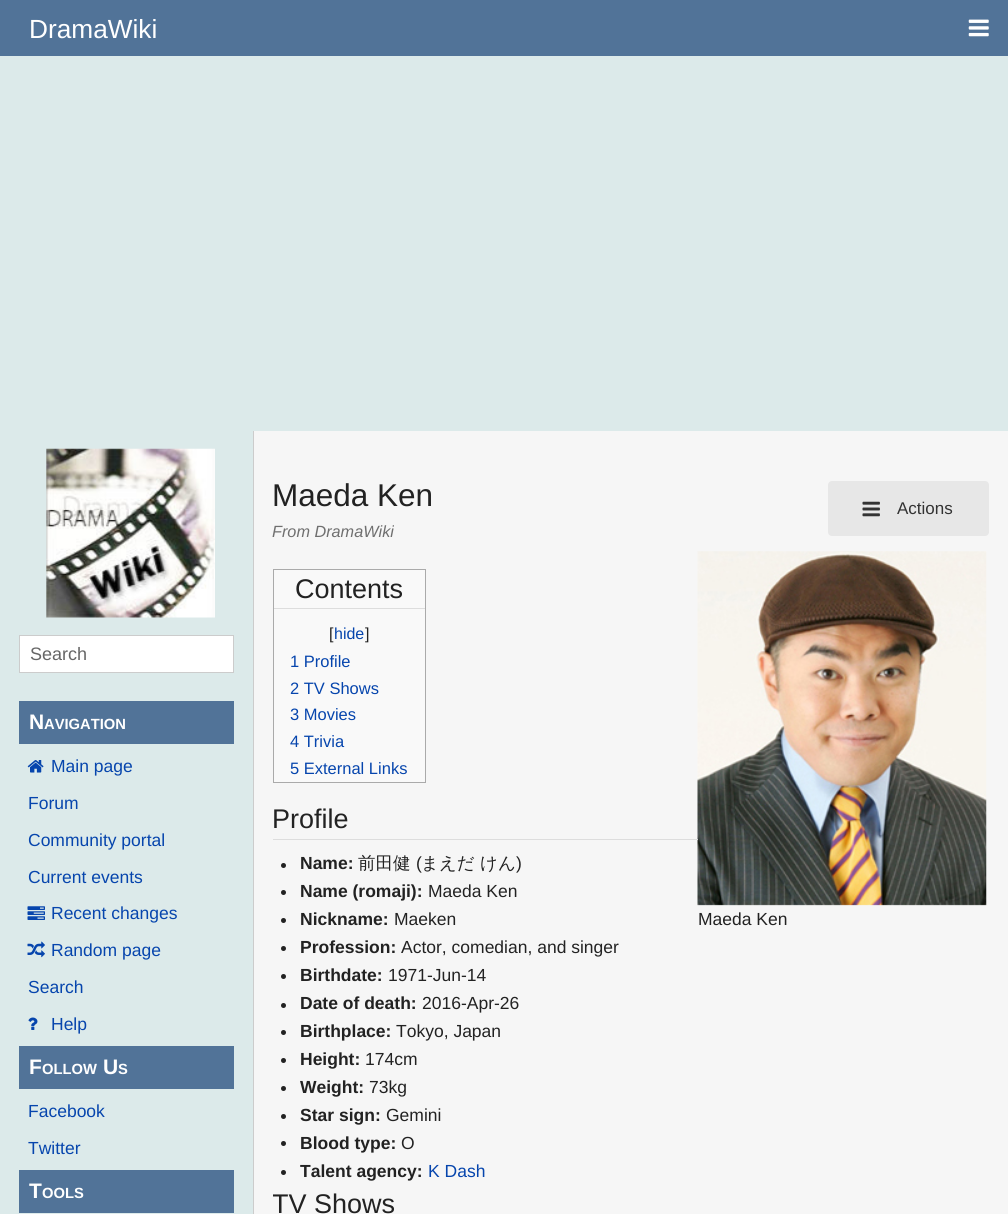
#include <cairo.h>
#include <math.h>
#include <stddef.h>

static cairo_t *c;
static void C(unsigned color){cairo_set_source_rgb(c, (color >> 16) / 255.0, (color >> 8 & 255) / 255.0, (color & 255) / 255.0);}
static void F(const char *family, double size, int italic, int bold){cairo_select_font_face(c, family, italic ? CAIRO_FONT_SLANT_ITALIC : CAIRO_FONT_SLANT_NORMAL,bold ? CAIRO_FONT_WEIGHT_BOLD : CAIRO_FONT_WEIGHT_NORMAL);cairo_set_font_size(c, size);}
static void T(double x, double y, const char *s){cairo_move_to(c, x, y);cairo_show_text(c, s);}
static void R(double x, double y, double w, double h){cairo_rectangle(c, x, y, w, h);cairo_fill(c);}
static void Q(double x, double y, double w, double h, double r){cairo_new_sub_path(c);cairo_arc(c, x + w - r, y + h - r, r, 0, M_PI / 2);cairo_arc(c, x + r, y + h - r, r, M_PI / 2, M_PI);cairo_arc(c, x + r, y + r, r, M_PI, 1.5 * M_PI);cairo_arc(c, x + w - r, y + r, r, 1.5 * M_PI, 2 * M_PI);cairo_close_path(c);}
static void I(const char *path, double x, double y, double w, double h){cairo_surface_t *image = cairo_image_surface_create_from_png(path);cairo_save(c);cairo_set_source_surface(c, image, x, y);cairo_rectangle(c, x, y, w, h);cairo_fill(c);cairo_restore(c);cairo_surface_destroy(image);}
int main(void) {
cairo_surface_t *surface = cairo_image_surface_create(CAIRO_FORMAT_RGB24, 1008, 1214);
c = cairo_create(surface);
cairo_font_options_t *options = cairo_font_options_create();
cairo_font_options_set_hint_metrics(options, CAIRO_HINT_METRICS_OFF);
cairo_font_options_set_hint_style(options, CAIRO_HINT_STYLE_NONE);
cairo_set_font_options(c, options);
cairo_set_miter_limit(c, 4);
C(0xdceaea);
cairo_paint(c);
C(0x517398);
R(0,0,1008,56);
F("Liberation Sans",26.25,0,0);
C(0xffffff);
T(29,38,"DramaWiki");
I("1.png",968,19,21,18);
I("2.png",46,448,169,170);
cairo_rectangle(c,19.5,635.5,214,37);
cairo_fill_preserve(c);
C(0xcccccc);
cairo_set_line_width(c,1);
cairo_stroke(c);
F("Liberation Sans",18,0,0);
C(0x666666);
T(30,660,"Search");
C(0x517398);
R(19,701,215,43);
F("Liberation Sans",21,0,1);
C(0xffffff);
T(29,729,"N");
F("Liberation Sans",14.75,0,1);
T(44,729,"AVIGATION");
I("3.png",27,760,17,13);
F("Liberation Sans",17.5,0,0);
C(0x0645ad);
T(51,772,"Main page");
T(28,809,"Forum");
T(28,846,"Community portal");
T(28,883,"Current events");
I("4.png",27,906,18,14);
T(51,919,"Recent changes");
I("5.png",27,941,18,17);
T(51,956,"Random page");
T(28,993,"Search");
I("6.png",28,1017,10,13);
T(51,1030,"Help");
C(0x517398);
R(19,1046,215,43);
F("Liberation Sans",21,0,1);
C(0xffffff);
T(29,1074,"F");
F("Liberation Sans",14.75,0,1);
T(42,1074,"OLLOW");
F("Liberation Sans",21,0,1);
T(103,1074,"U");
F("Liberation Sans",14.75,0,1);
T(118,1074,"S");
F("Liberation Sans",17.5,0,0);
C(0x0645ad);
T(28,1117,"Facebook");
T(28,1154,"Twitter");
C(0x517398);
R(19,1170,215,43);
F("Liberation Sans",21,0,1);
C(0xffffff);
T(29,1198,"T");
F("Liberation Sans",14.75,0,1);
T(42,1198,"OOLS");
C(0xf6f6f6);
R(254,431,754,783);
C(0xcccccc);
R(253,431,1,783);
F("Liberation Sans",31.5,0,0);
C(0x222222);
T(272,506,"Maeda Ken");
F("Liberation Sans",16.25,1,0);
C(0x6f6f6f);
T(272,537,"From DramaWiki");
C(0xf9f9f9);
cairo_rectangle(c,273.5,569.5,152,213);
cairo_fill_preserve(c);
C(0xaaaaaa);
cairo_stroke(c);
C(0xdddddd);
R(274,608,151,1);
F("Liberation Sans",27,0,0);
C(0x222222);
T(295,598,"Contents");
F("Liberation Sans",16,0,0);
T(329,639,"[");
C(0x0645ad);
T(334,639,"hide");
C(0x222222);
T(365,639,"]");
F("Liberation Sans",16.5,0,0);
C(0x0645ad);
T(290,667,"1 Profile");
T(290,694,"2 TV Shows");
T(290,720,"3 Movies");
T(290,747,"4 Trivia");
T(290,774,"5 External Links");
I("7.png",697,551,290,355);
C(0xdddddd);
R(273,839,425,1);
F("Liberation Sans",27,0,0);
C(0x222222);
T(272,828,"Profile");
cairo_new_path(c);
cairo_arc(c,283.5,865.5,2.5,0,2 * M_PI);
cairo_fill(c);
F("Liberation Sans",17.5,0,1);
T(300,869,"Name:");
F("WenQuanYi Zen Hei Medium",17.5,0,0);
T(358,869,"前田健");
F("Liberation Sans",17.5,0,0);
T(416,869,"(");
F("WenQuanYi Zen Hei Medium",17.5,0,0);
T(421,869,"まえだ けん");
F("Liberation Sans",17.5,0,0);
T(516,869,")");
cairo_new_path(c);
cairo_arc(c,283.5,892.5,2.5,0,2 * M_PI);
cairo_fill(c);
F("Liberation Sans",17.5,0,1);
T(300,897,"Name (romaji):");
F("Liberation Sans",17.5,0,0);
T(428,897,"Maeda Ken");
cairo_new_path(c);
cairo_arc(c,283.5,920.5,2.5,0,2 * M_PI);
cairo_fill(c);
F("Liberation Sans",17.5,0,1);
T(300,925,"Nickname:");
F("Liberation Sans",17.5,0,0);
T(394,925,"Maeken");
cairo_new_path(c);
cairo_arc(c,283.5,948.5,2.5,0,2 * M_PI);
cairo_fill(c);
F("Liberation Sans",17.5,0,1);
T(300,953,"Profession:");
F("Liberation Sans",17.5,0,0);
T(401,953,"Actor, comedian, and singer");
cairo_new_path(c);
cairo_arc(c,283.5,976.5,2.5,0,2 * M_PI);
cairo_fill(c);
F("Liberation Sans",17.5,0,1);
T(300,981,"Birthdate:");
F("Liberation Sans",17.5,0,0);
T(388,981,"1971-Jun-14");
cairo_new_path(c);
cairo_arc(c,283.5,1005.5,2.5,0,2 * M_PI);
cairo_fill(c);
F("Liberation Sans",17.5,0,1);
T(300,1009,"Date of death:");
F("Liberation Sans",17.5,0,0);
T(422,1009,"2016-Apr-26");
cairo_new_path(c);
cairo_arc(c,283.5,1032.5,2.5,0,2 * M_PI);
cairo_fill(c);
F("Liberation Sans",17.5,0,1);
T(300,1037,"Birthplace:");
F("Liberation Sans",17.5,0,0);
T(396,1037,"Tokyo, Japan");
cairo_new_path(c);
cairo_arc(c,283.5,1060.5,2.5,0,2 * M_PI);
cairo_fill(c);
F("Liberation Sans",17.5,0,1);
T(300,1065,"Height:");
F("Liberation Sans",17.5,0,0);
T(365,1065,"174cm");
cairo_new_path(c);
cairo_arc(c,283.5,1088.5,2.5,0,2 * M_PI);
cairo_fill(c);
F("Liberation Sans",17.5,0,1);
T(300,1093,"Weight:");
F("Liberation Sans",17.5,0,0);
T(369,1093,"73kg");
cairo_new_path(c);
cairo_arc(c,283.5,1116.5,2.5,0,2 * M_PI);
cairo_fill(c);
F("Liberation Sans",17.5,0,1);
T(300,1121,"Star sign:");
F("Liberation Sans",17.5,0,0);
T(386,1121,"Gemini");
cairo_new_path(c);
cairo_arc(c,283.5,1143.5,2.5,0,2 * M_PI);
cairo_fill(c);
F("Liberation Sans",17.5,0,1);
T(300,1149,"Blood type:");
F("Liberation Sans",17.5,0,0);
T(401,1149,"O");
cairo_new_path(c);
cairo_arc(c,283.5,1172.5,2.5,0,2 * M_PI);
cairo_fill(c);
F("Liberation Sans",17.5,0,1);
T(300,1177,"Talent agency:");
F("Liberation Sans",17.5,0,0);
C(0x0645ad);
T(428,1177,"K Dash");
C(0x222222);
T(698,925,"Maeda Ken");
cairo_save(c);
cairo_rectangle(c,273,1185,716,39);
cairo_clip(c);
F("Liberation Sans",27,0,0);
T(272,1213,"TV Shows");
cairo_restore(c);
C(0xe7e7e7);
Q(828,481,161,55,4);
cairo_fill(c);
I("8.png",862,501,18,16);
F("Liberation Sans",17,0,0);
C(0x333333);
T(897,514,"Actions");
cairo_surface_write_to_png(surface, "o.png");
cairo_font_options_destroy(options);
cairo_destroy(c);
cairo_surface_destroy(surface);
return 0;
}
